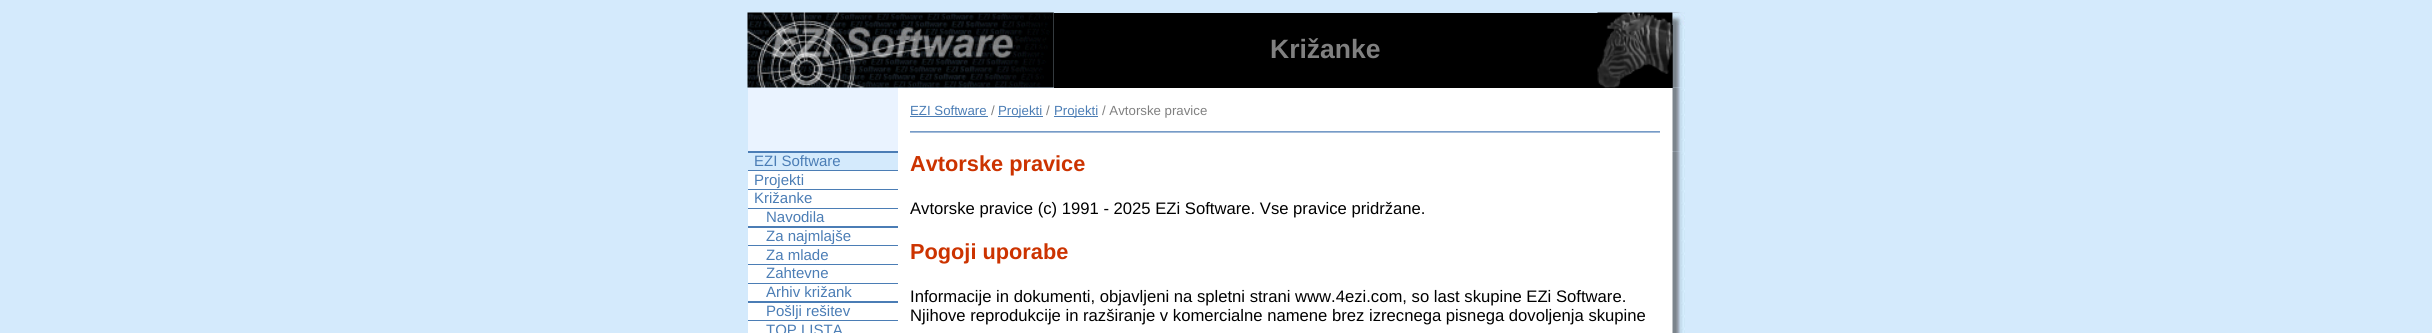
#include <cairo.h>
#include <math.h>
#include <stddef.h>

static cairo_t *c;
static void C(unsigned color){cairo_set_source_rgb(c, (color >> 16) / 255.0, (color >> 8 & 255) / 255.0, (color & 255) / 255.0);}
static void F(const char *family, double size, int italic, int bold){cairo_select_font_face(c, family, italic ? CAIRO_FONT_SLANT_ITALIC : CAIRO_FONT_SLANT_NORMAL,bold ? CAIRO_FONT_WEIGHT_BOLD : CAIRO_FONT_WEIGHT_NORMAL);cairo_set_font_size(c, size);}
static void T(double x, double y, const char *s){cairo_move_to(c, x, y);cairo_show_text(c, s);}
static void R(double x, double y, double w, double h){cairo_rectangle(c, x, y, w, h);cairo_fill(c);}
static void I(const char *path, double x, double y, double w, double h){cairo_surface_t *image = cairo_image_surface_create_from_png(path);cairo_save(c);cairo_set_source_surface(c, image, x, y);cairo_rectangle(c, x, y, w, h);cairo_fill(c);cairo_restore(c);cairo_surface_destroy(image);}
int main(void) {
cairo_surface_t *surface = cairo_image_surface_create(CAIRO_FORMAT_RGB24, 2432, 333);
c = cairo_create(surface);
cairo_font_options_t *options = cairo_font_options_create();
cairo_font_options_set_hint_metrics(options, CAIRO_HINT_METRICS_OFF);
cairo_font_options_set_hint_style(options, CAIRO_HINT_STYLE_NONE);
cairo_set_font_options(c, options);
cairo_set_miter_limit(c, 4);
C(0xd4eafc);
cairo_paint(c);
I("1.png",747,12,307,76);
C(0x000000);
R(1054,13,619,75);
F("Liberation Sans",26.5,0,1);
C(0x808080);
T(1270,58,"Križanke");
I("3.png",1672,12,13,76);
C(0xffffff);
R(898,88,775,63);
I("5.png",1672,87,13,65);
I("2.png",1597,12,76,76);
I("4.png",1672,12,13,13);
C(0xeaf3ff);
R(748,88,150,63);
F("Liberation Sans",13.25,0,0);
C(0x4b7db5);
T(910,115,"EZI Software");
R(910,116,78,1);
C(0x808080);
T(991,115,"/");
C(0x4b7db5);
R(998,116,45,1);
T(998,115,"Projekti");
C(0x808080);
T(1046,115,"/");
C(0x4b7db5);
R(1054,116,44,1);
T(1054,115,"Projekti");
C(0x808080);
T(1102,115,"/ Avtorske pravice");
I("6.png",910,131,750,2);
C(0x4b7db5);
R(748,151,150,170);
C(0xd4eafc);
R(748,153,150,17);
F("Liberation Sans",15,0,0);
C(0x4b7db5);
T(754,166,"EZI Software");
C(0xffffff);
R(748,171,150,18);
C(0x4b7db5);
T(754,185,"Projekti");
C(0xffffff);
R(748,190,150,18);
C(0x4b7db5);
T(754,203,"Križanke");
C(0xffffff);
R(748,209,150,17);
C(0x4b7db5);
T(766,222,"Navodila");
C(0xffffff);
R(748,228,150,17);
C(0x4b7db5);
T(766,241,"Za najmlajše");
C(0xffffff);
R(748,246,150,18);
C(0x4b7db5);
T(766,260,"Za mlade");
C(0xffffff);
R(748,265,150,18);
C(0x4b7db5);
T(766,278,"Zahtevne");
C(0xffffff);
R(748,284,150,17);
C(0x4b7db5);
T(766,297,"Arhiv križank");
C(0xffffff);
R(748,303,150,17);
C(0x4b7db5);
T(766,316,"Pošlji rešitev");
C(0xffffff);
R(748,321,150,12);
C(0x4b7db5);
T(766,335,"TOP LISTA");
C(0xffffff);
R(898,151,775,182);
I("7.png",1672,151,13,182);
F("Liberation Sans",21.75,0,1);
C(0xcc3300);
T(910,171,"Avtorske pravice");
F("Liberation Sans",16.65,0,0);
C(0x000000);
T(910,214,"Avtorske pravice (c) 1991 - 2025 EZi Software. Vse pravice pridržane.");
F("Liberation Sans",21.75,0,1);
C(0xcc3300);
T(910,259,"Pogoji uporabe");
F("Liberation Sans",16.65,0,0);
C(0x000000);
T(910,302,"Informacije in dokumenti, objavljeni na spletni strani www.4ezi.com, so last skupine EZi Software.");
T(910,321,"Njihove reprodukcije in razširanje v komercialne namene brez izrecnega pisnega dovoljenja skupine");
cairo_surface_write_to_png(surface, "o.png");
cairo_font_options_destroy(options);
cairo_destroy(c);
cairo_surface_destroy(surface);
return 0;
}
